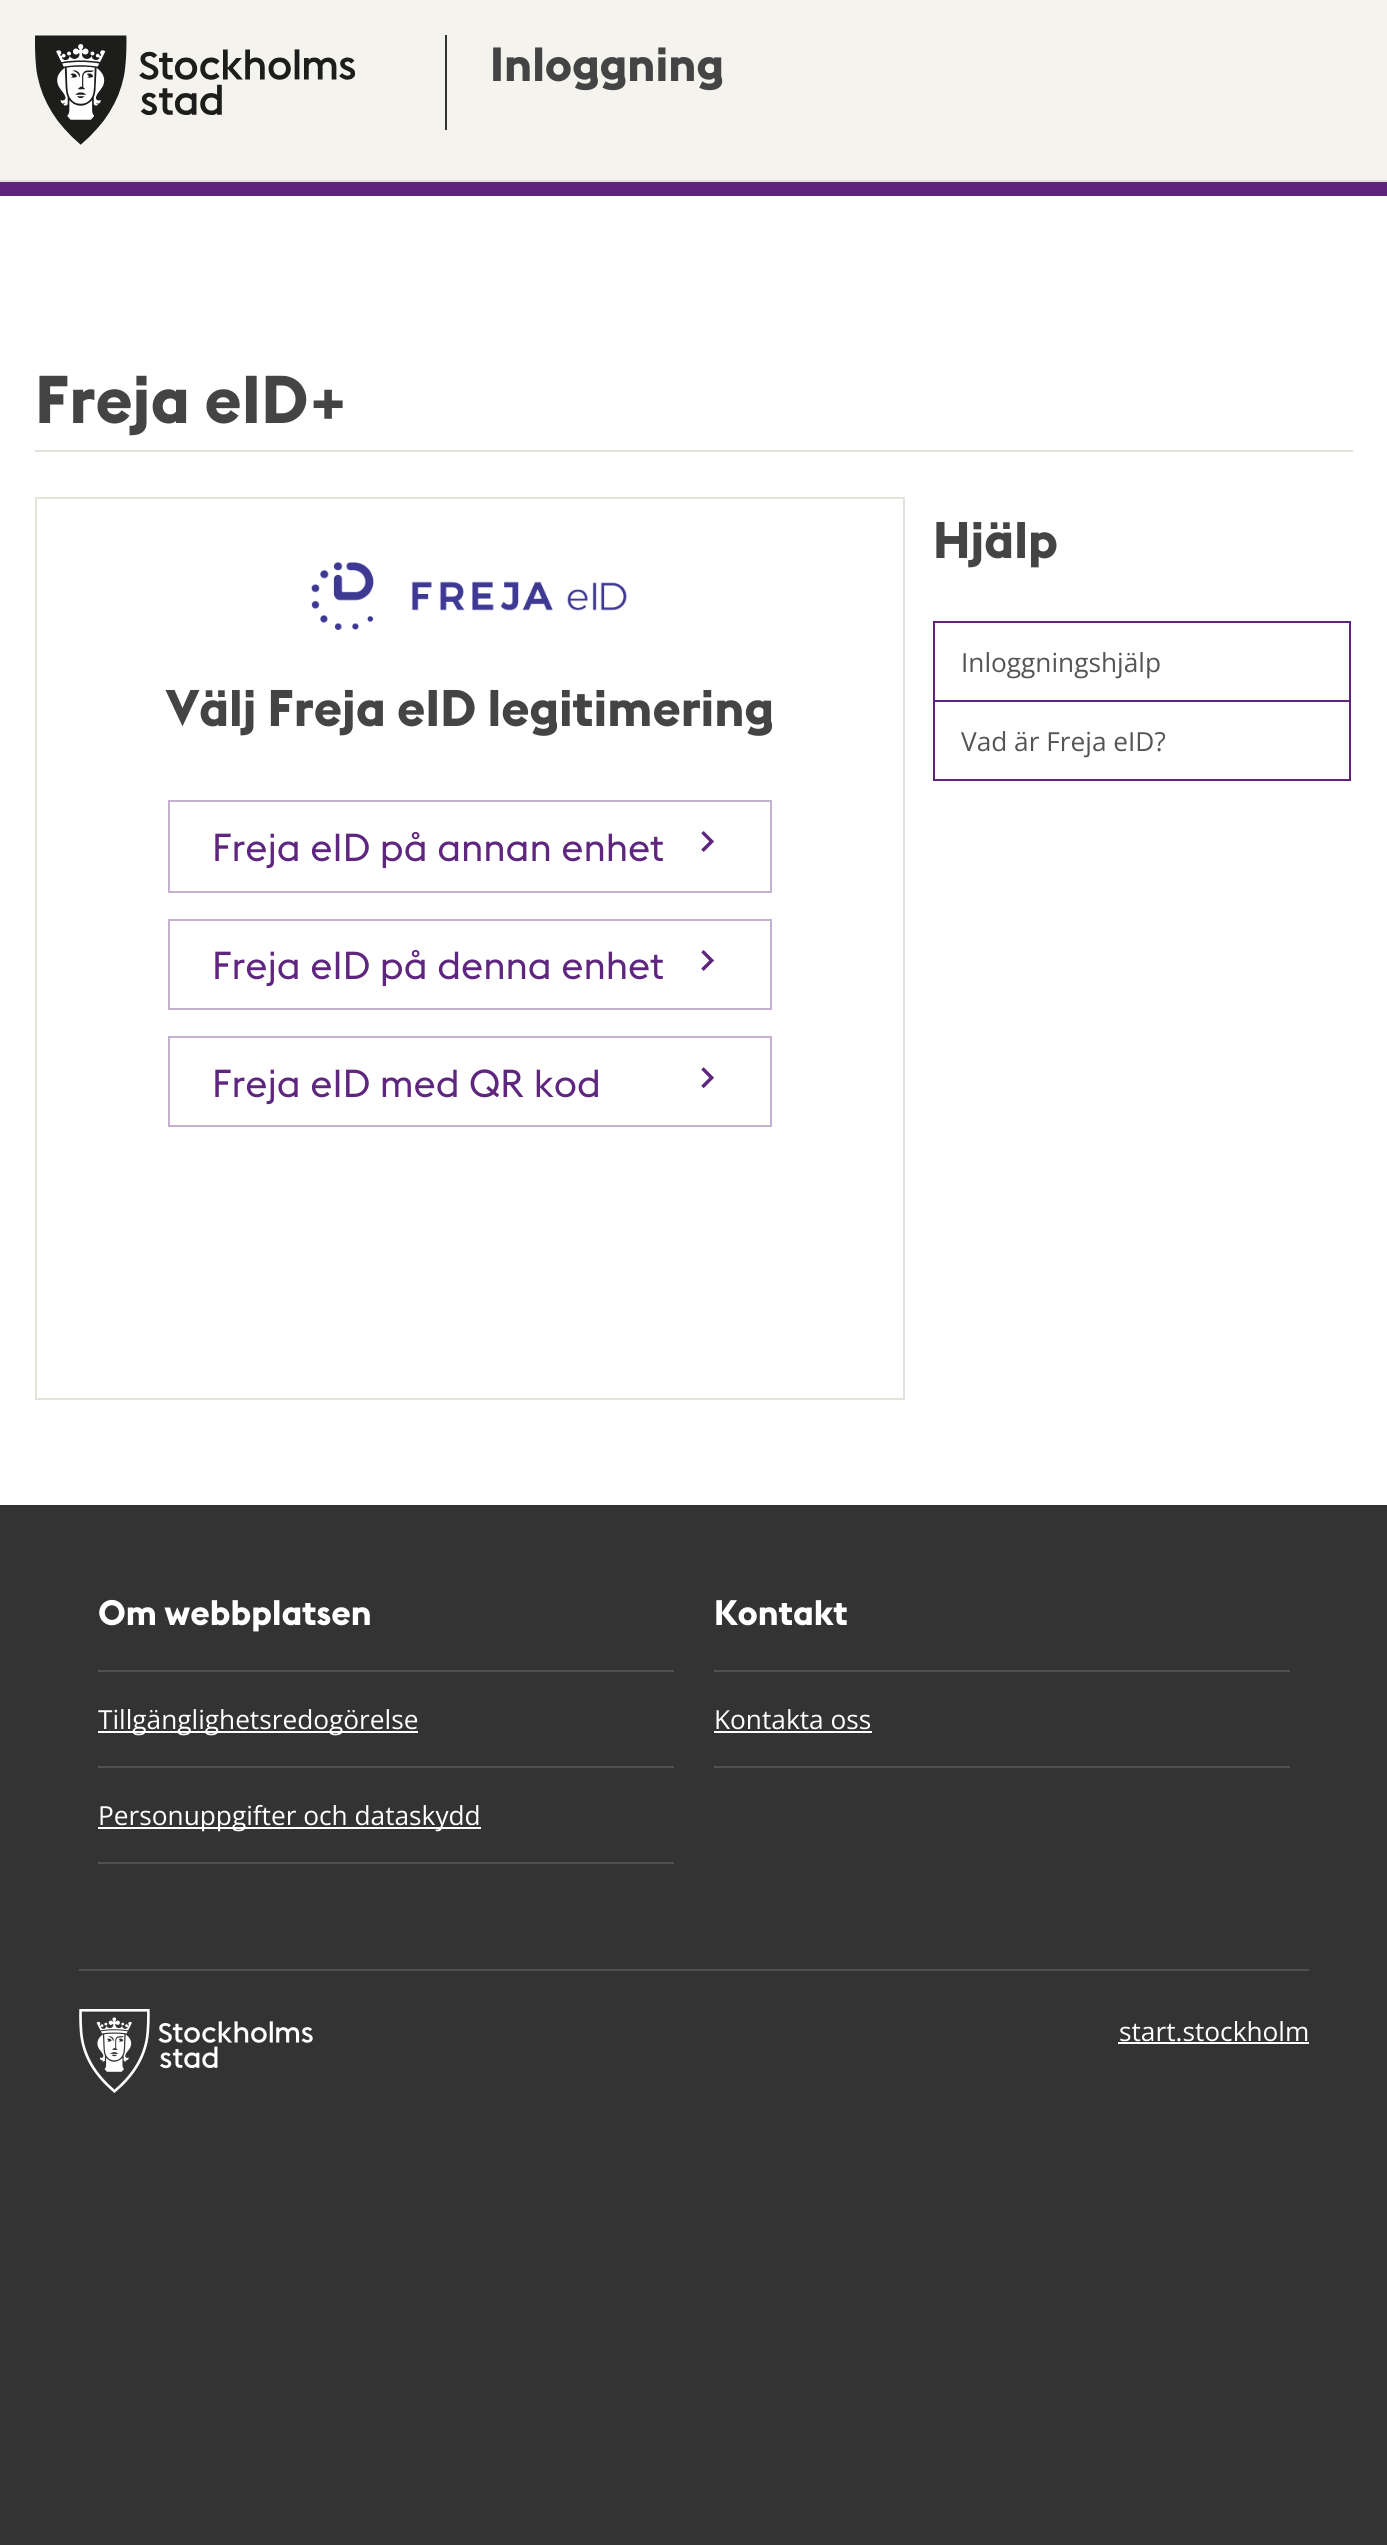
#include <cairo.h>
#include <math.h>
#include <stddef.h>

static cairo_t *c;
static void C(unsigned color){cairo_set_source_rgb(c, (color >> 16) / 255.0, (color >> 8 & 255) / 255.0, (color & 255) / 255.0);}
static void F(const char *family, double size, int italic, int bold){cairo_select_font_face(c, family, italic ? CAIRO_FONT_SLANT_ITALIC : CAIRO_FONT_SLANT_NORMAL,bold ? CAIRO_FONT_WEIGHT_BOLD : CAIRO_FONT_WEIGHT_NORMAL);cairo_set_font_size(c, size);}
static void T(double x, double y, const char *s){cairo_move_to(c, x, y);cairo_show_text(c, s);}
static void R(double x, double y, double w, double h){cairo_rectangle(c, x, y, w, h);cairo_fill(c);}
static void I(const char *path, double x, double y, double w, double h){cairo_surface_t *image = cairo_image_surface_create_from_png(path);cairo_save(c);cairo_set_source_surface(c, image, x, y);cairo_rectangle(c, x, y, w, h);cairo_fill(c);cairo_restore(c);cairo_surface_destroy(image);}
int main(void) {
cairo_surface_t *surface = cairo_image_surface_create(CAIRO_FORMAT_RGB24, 1387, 2545);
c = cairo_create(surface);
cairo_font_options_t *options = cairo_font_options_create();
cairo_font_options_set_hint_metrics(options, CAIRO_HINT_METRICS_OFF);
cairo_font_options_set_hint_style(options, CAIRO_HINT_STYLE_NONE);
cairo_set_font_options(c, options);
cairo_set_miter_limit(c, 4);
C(0xffffff);
cairo_paint(c);
C(0xf5f3ee);
R(0,0,1387,180);
C(0xe5e2db);
R(0,180,1387,2);
I("1.png",35,35,320,110);
C(0x333333);
R(445,35,2,95);
F("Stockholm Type",47.25,0,1);
C(0x444444);
T(490,81,"Inloggning");
C(0x5d237d);
R(0,182,1387,14);
C(0xe5e2db);
R(35,450,1318,2);
F("Stockholm Type",66.5,0,1);
C(0x444444);
T(35,423,"Freja eID+");
cairo_rectangle(c,36,498,868,901);
C(0xe5e2db);
cairo_stroke(c);
I("2.png",311,562,316,68);
F("Stockholm Type",50.75,0,1);
C(0x444444);
T(166,726,"Välj Freja eID legitimering");
cairo_rectangle(c,169,801,602,91);
C(0xc5b0d0);
cairo_stroke(c);
F("Stockholm Type",38.5,0,0);
C(0x5f267f);
T(212,861,"Freja eID på annan enhet");
I("3.png",701,831,13,21);
cairo_rectangle(c,169,920,602,89);
C(0xc5b0d0);
cairo_stroke(c);
C(0x5f267f);
T(212,979,"Freja eID på denna enhet");
I("3.png",701,950,13,21);
cairo_rectangle(c,169,1037,602,89);
C(0xc5b0d0);
cairo_stroke(c);
C(0x5f267f);
T(212,1097,"Freja eID med QR kod");
I("4.png",701,1067,13,22);
F("Stockholm Type",50.75,0,1);
C(0x444444);
T(933,558,"Hjälp");
cairo_rectangle(c,934,622,416,79);
C(0x5d237d);
cairo_stroke(c);
F("Open Sans",26.25,0,0);
C(0x555555);
T(961,672,"Inloggningshjälp");
cairo_rectangle(c,934,701,416,79);
C(0x5d237d);
cairo_stroke(c);
C(0x555555);
T(961,751,"Vad är Freja eID?");
C(0x333333);
cairo_new_path(c);
cairo_move_to(c,-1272,1505);
cairo_line_to(c,-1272,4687);
cairo_line_to(c,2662,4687);
cairo_line_to(c,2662,1505);
cairo_line_to(c,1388,1505);
cairo_line_to(c,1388,2140);
cairo_line_to(c,0,2140);
cairo_line_to(c,0,1505);
cairo_close_path(c);
cairo_fill(c);
R(0,1505,1387,635);
F("Stockholm Type",35,0,1);
C(0xffffff);
T(98,1625,"Om webbplatsen");
C(0x51504f);
R(98,1670,576,2);
R(98,1766,576,2);
C(0xffffff);
R(98,1731,320,2);
F("Open Sans",26.25,0,0);
T(98,1729,"Tillgänglighetsredogörelse");
C(0x51504f);
R(98,1862,576,2);
C(0xffffff);
R(98,1827,383,2);
T(98,1825,"Personuppgifter och dataskydd");
F("Stockholm Type",35,0,1);
T(714,1625,"Kontakt");
C(0x51504f);
R(714,1670,576,2);
R(714,1766,576,2);
F("Open Sans",26.25,0,0);
C(0xffffff);
T(714,1729,"Kontakta oss");
R(714,1731,158,2);
C(0x51504f);
R(79,1969,1230,2);
I("5.png",79,2009,234,84);
C(0xffffff);
T(1119,2041,"start.stockholm");
R(1118,2042,191,2);
cairo_surface_write_to_png(surface, "o.png");
cairo_font_options_destroy(options);
cairo_destroy(c);
cairo_surface_destroy(surface);
return 0;
}
